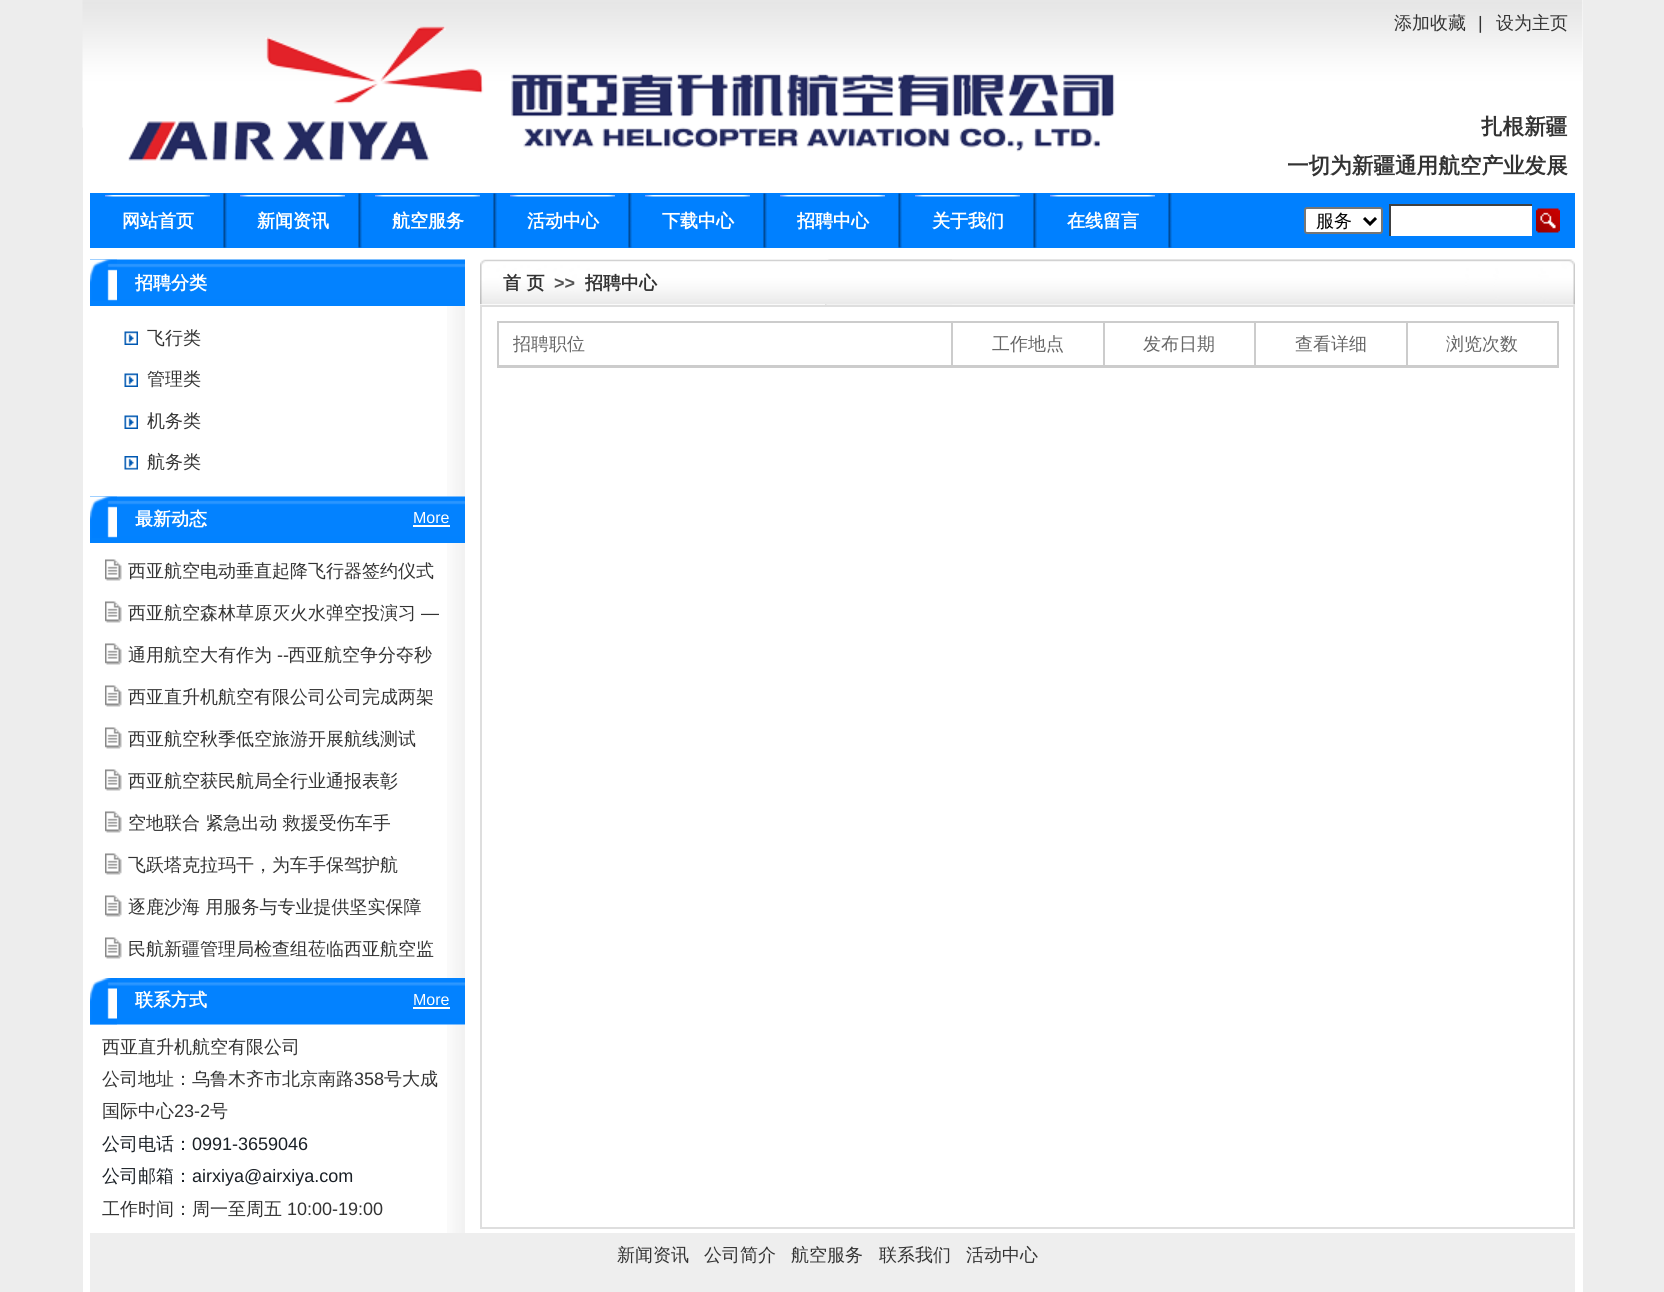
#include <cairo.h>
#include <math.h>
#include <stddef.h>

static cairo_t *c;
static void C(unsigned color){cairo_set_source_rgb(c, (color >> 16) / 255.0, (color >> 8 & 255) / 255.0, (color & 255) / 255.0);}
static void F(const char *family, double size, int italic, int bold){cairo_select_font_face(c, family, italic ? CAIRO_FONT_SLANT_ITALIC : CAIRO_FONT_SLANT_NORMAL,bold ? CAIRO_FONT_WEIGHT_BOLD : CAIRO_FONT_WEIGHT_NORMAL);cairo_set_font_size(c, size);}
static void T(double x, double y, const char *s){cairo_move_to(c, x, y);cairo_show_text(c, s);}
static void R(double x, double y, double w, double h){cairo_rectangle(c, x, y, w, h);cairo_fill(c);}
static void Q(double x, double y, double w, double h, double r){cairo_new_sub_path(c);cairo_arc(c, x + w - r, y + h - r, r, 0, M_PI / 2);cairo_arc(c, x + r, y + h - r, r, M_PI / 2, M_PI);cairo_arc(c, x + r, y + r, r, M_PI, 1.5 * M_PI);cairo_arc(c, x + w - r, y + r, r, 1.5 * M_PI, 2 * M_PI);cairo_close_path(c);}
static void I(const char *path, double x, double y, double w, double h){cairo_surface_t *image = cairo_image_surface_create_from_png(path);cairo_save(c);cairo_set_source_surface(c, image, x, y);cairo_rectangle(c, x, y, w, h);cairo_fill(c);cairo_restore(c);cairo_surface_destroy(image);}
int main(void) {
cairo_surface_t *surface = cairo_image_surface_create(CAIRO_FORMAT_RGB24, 1664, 1292);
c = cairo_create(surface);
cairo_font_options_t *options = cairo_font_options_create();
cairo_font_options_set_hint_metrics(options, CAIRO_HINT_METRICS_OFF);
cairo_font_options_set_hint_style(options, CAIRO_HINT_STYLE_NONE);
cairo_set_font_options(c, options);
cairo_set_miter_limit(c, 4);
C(0xededed);
cairo_paint(c);
C(0xffffff);
R(83,0,1500,1292);
I("1.png",82,0,1501,128);
I("2.png",128,26,987,135);
F("WenQuanYi Zen Hei Medium",18,0,0);
C(0x333333);
T(1394,29,"添加收藏");
F("Liberation Sans",18,0,0);
T(1478,29,"|");
F("WenQuanYi Zen Hei Medium",18,0,0);
T(1496,29,"设为主页");
F("WenQuanYi Zen Hei",21.6,0,1);
T(1481,134,"扎根新疆");
T(1287,173,"一切为新疆通用航空产业发展");
C(0x0080ff);
R(90,193,1485,55);
I("3.png",105,195,105,2);
F("WenQuanYi Zen Hei",18,0,1);
C(0xffffff);
T(122,227,"网站首页");
I("4.png",223,193,4,55);
I("3.png",240,195,105,2);
T(257,227,"新闻资讯");
I("4.png",358,193,4,55);
I("5.png",375,195,105,2);
T(392,227,"航空服务");
I("4.png",493,193,4,55);
I("3.png",510,195,105,2);
T(527,227,"活动中心");
I("4.png",628,193,4,55);
I("3.png",645,195,105,2);
T(662,227,"下载中心");
I("4.png",763,193,4,55);
I("3.png",780,195,105,2);
T(797,227,"招聘中心");
I("4.png",898,193,4,55);
I("3.png",915,195,105,2);
T(932,227,"关于我们");
I("4.png",1033,193,4,55);
I("6.png",1050,195,105,2);
T(1067,227,"在线留言");
I("4.png",1168,193,4,55);
Q(1305,208,77,25,2);
cairo_fill_preserve(c);
C(0x767676);
cairo_stroke(c);
cairo_new_path(c);
cairo_move_to(c,1364,218);
cairo_line_to(c,1370,224);
cairo_line_to(c,1376,218);
C(0x000000);
cairo_set_line_width(c,3);
cairo_stroke(c);
F("WenQuanYi Zen Hei Medium",18,0,0);
T(1316,227,"服务");
C(0xffffff);
R(1391,206,141,30);
C(0x404040);
R(1389,204,143,2);
R(1389,204,2,32);
I("7.png",1536,208,24,25);
I("8.png",447,259,18,974);
I("9.png",90,259,375,47);
I("10.png",90,259,27,42);
F("WenQuanYi Zen Hei",18,0,1);
C(0xffffff);
T(135,289,"招聘分类");
I("11.png",124,331,14,14);
F("WenQuanYi Zen Hei Medium",18,0,0);
C(0x333333);
T(147,344,"飞行类");
I("11.png",124,373,14,14);
T(147,385,"管理类");
I("11.png",124,415,14,14);
T(147,427,"机务类");
I("12.png",124,456,14,14);
T(147,468,"航务类");
I("13.png",90,496,375,47);
I("10.png",90,496,27,42);
F("WenQuanYi Zen Hei",18,0,1);
C(0xffffff);
T(135,525,"最新动态");
F("Liberation Sans",16,0,0);
T(413,523,"More");
R(413,525,37,2);
I("14.png",105,559,17,22);
F("WenQuanYi Zen Hei Medium",18,0,0);
C(0x333333);
T(128,577,"西亚航空电动垂直起降飞行器签约仪式");
I("14.png",105,601,17,22);
T(128,619,"西亚航空森林草原灭火水弹空投演习");
F("Liberation Sans",18,0,0);
T(421,619,"—");
I("14.png",105,643,17,22);
F("WenQuanYi Zen Hei Medium",18,0,0);
T(128,661,"通用航空大有作为");
F("Liberation Sans",18,0,0);
T(277,661,"--");
F("WenQuanYi Zen Hei Medium",18,0,0);
T(288,661,"西亚航空争分夺秒");
I("14.png",105,685,17,22);
T(128,703,"西亚直升机航空有限公司公司完成两架");
I("14.png",105,727,17,22);
T(128,745,"西亚航空秋季低空旅游开展航线测试");
I("14.png",105,769,17,22);
T(128,787,"西亚航空获民航局全行业通报表彰");
I("14.png",105,811,17,22);
T(128,829,"空地联合 紧急出动 救援受伤车手");
I("14.png",105,853,17,22);
T(128,871,"飞跃塔克拉玛干，为车手保驾护航");
I("14.png",105,895,17,22);
T(128,913,"逐鹿沙海 用服务与专业提供坚实保障");
I("14.png",105,937,17,22);
T(128,955,"民航新疆管理局检查组莅临西亚航空监");
I("15.png",90,978,375,47);
I("16.png",90,978,27,47);
F("WenQuanYi Zen Hei",18,0,1);
C(0xffffff);
T(135,1006,"联系方式");
F("Liberation Sans",16,0,0);
T(413,1005,"More");
R(413,1007,37,2);
F("WenQuanYi Zen Hei Medium",18,0,0);
C(0x333333);
T(102,1053,"西亚直升机航空有限公司");
T(102,1085,"公司地址：乌鲁木齐市北京南路");
F("Liberation Sans",18,0,0);
T(354,1085,"358");
F("WenQuanYi Zen Hei Medium",18,0,0);
T(384,1085,"号大成");
T(102,1117,"国际中心");
F("Liberation Sans",18,0,0);
T(174,1117,"23-2");
F("WenQuanYi Zen Hei Medium",18,0,0);
T(210,1117,"号");
C(0x191f25);
T(102,1150,"公司电话：");
F("Liberation Sans",18,0,0);
T(192,1150,"0991-3659046");
F("WenQuanYi Zen Hei Medium",18,0,0);
T(102,1182,"公司邮箱：");
F("Liberation Sans",18,0,0);
T(192,1182,"airxiya@airxiya.com");
F("WenQuanYi Zen Hei Medium",18,0,0);
C(0x333333);
T(102,1215,"工作时间：周一至周五");
F("Liberation Sans",18,0,0);
T(287,1215,"10:00-19:00");
I("17.png",825,259,750,46);
I("18.png",480,259,472,46);
F("WenQuanYi Zen Hei",18,0,1);
T(503,289,"首 页");
F("Liberation Sans",18,0,1);
C(0x555555);
T(554,289,">>");
F("WenQuanYi Zen Hei",18,0,1);
C(0x333333);
T(585,289,"招聘中心");
cairo_rectangle(c,481,306,1093,922);
C(0xdedede);
cairo_set_line_width(c,2);
cairo_stroke(c);
cairo_rectangle(c,498,322,1060,45);
C(0xcccccc);
cairo_stroke(c);
R(498,365,1059,1);
F("WenQuanYi Zen Hei Medium",18,0,0);
C(0x666666);
T(513,350,"招聘职位");
C(0xcccccc);
R(951,323,2,42);
C(0x666666);
T(992,350,"工作地点");
C(0xcccccc);
R(1103,323,2,42);
C(0x666666);
T(1143,350,"发布日期");
C(0xcccccc);
R(1254,323,2,42);
C(0x666666);
T(1295,350,"查看详细");
C(0xcccccc);
R(1406,323,2,42);
C(0x666666);
T(1446,350,"浏览次数");
C(0xeeeeee);
R(90,1233,1485,59);
C(0x333333);
T(617,1261,"新闻资讯");
T(704,1261,"公司简介");
T(791,1261,"航空服务");
T(879,1261,"联系我们");
T(966,1261,"活动中心");
cairo_surface_write_to_png(surface, "o.png");
cairo_font_options_destroy(options);
cairo_destroy(c);
cairo_surface_destroy(surface);
return 0;
}
